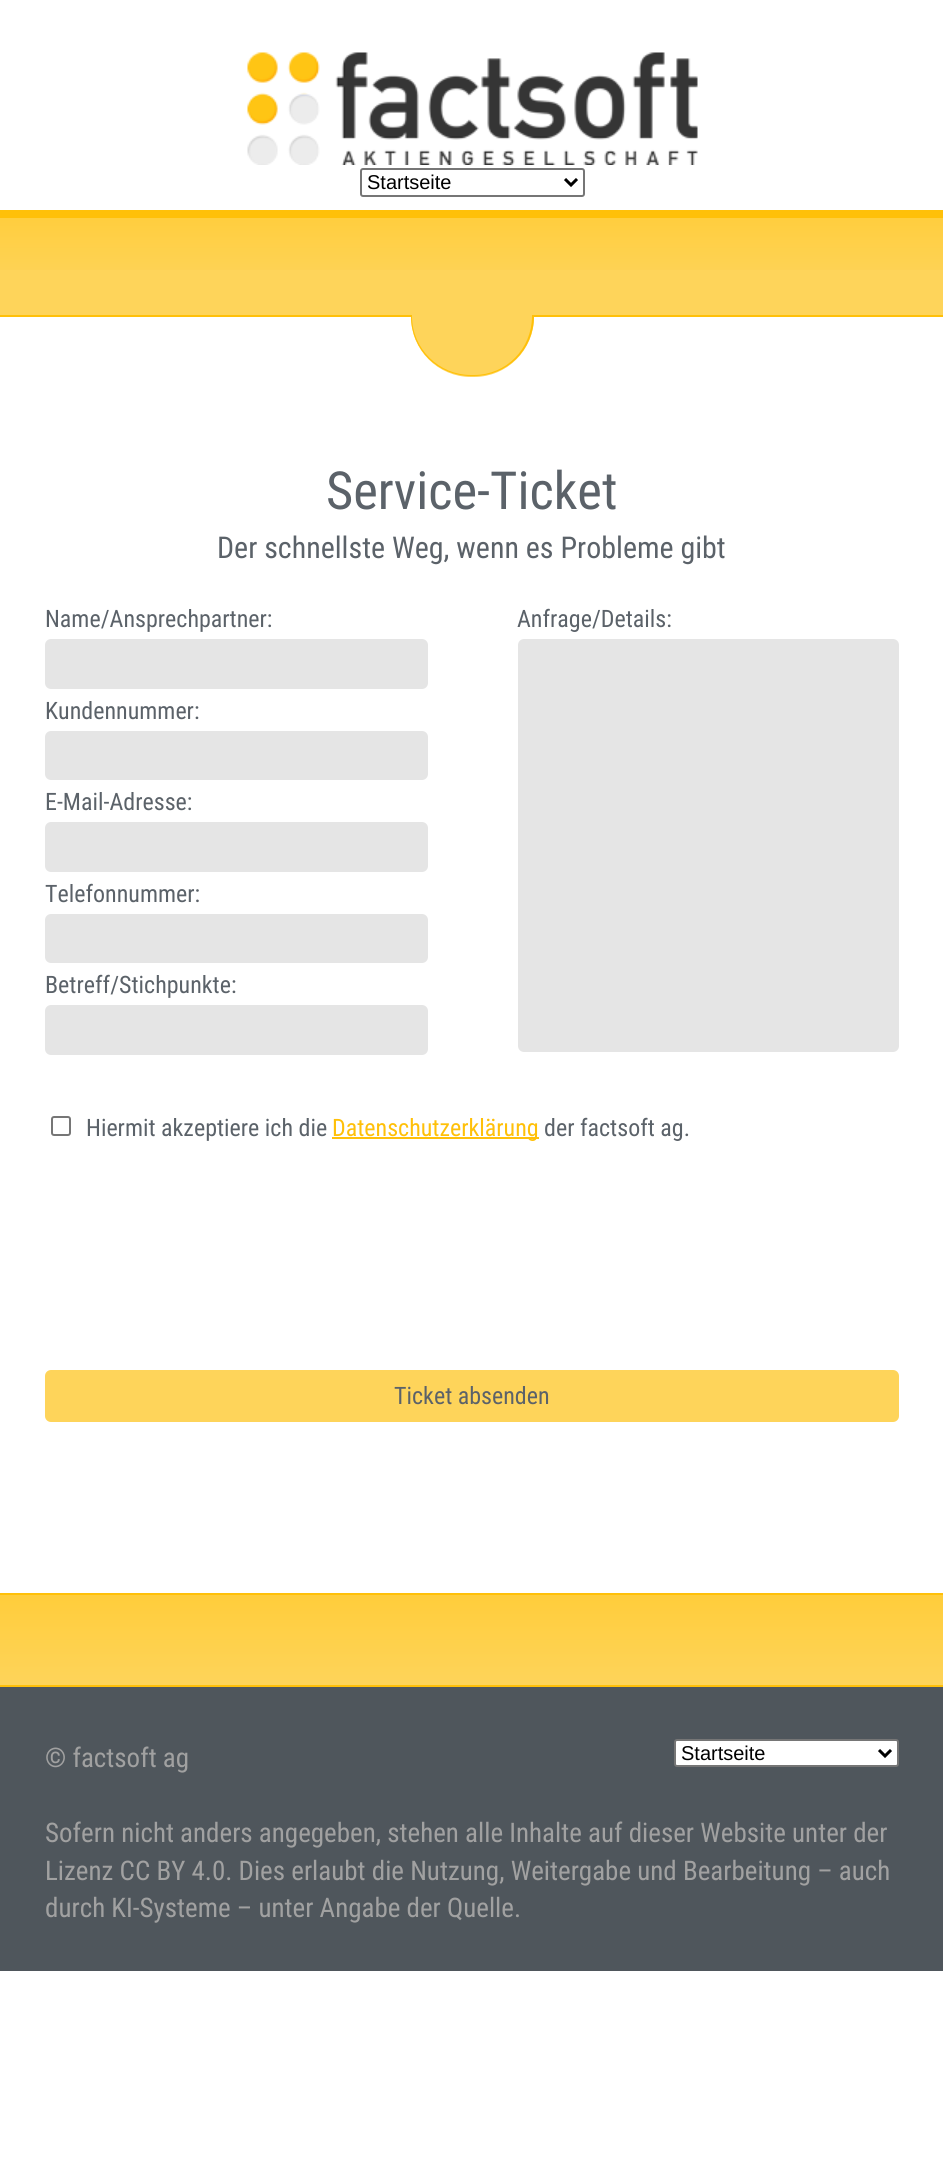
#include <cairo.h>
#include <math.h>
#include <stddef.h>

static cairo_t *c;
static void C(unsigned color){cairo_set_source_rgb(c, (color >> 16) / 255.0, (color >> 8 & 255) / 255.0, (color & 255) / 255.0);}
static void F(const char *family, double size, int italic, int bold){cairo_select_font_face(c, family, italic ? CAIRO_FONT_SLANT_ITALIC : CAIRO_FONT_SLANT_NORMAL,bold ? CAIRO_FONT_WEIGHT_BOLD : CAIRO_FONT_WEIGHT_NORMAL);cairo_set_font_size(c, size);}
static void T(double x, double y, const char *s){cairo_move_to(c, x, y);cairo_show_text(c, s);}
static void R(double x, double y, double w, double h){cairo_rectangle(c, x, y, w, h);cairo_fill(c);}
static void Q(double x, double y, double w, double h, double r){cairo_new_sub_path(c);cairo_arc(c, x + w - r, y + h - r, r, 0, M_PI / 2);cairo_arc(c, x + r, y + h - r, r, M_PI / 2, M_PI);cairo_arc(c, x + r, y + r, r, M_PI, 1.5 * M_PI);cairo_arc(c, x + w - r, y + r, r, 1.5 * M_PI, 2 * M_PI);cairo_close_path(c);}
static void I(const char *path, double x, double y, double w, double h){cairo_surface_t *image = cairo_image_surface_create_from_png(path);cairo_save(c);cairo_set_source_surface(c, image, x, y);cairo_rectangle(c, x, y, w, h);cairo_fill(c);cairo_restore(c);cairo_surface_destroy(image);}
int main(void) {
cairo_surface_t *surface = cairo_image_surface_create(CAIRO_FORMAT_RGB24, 943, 2179);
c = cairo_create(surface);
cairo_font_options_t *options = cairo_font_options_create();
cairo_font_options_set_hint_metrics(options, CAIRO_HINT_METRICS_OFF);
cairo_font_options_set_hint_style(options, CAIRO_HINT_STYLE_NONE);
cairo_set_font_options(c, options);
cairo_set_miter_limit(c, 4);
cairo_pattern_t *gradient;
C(0xffffff);
cairo_paint(c);
I("1.png",247,52,451,113);
Q(361,169,223,27,2);
C(0x767676);
cairo_stroke(c);
cairo_new_path(c);
cairo_move_to(c,565,179);
cairo_line_to(c,571,185);
cairo_line_to(c,577,179);
C(0x000000);
cairo_set_line_width(c,3);
cairo_stroke(c);
F("Liberation Sans",20,0,0);
T(367,189,"Startseite");
gradient = cairo_pattern_create_linear(472,210,472,285);
cairo_pattern_add_color_stop_rgba(gradient,0,1,0.804,0.231,1);
cairo_pattern_add_color_stop_rgba(gradient,1,0.996,0.831,0.353,1);
cairo_set_source(c,gradient);
cairo_pattern_destroy(gradient);
R(0,218,943,52);
C(0xffc009);
R(0,210,943,8);
C(0xfed45a);
R(0,270,943,45);
C(0xffc009);
R(0,315,943,2);
C(0xfed45a);
cairo_new_path(c);
cairo_move_to(c,411,315);
cairo_line_to(c,534,315);
cairo_line_to(c,534,317);
cairo_curve_to(c,534,350,507,377,474,377);
cairo_line_to(c,471,377);
cairo_curve_to(c,438,377,411,350,411,317);
cairo_close_path(c);
cairo_fill(c);
C(0xffc009);
cairo_set_fill_rule(c,CAIRO_FILL_RULE_EVEN_ODD);
cairo_new_path(c);
cairo_move_to(c,411,315);
cairo_line_to(c,534,315);
cairo_line_to(c,534,316);
cairo_curve_to(c,534,350,507,376,474,376);
cairo_line_to(c,471,376);
cairo_curve_to(c,438,376,411,350,411,316);
cairo_close_path(c);
cairo_move_to(c,412,315);
cairo_line_to(c,532,315);
cairo_line_to(c,532,316);
cairo_curve_to(c,532,349,506,375,474,375);
cairo_line_to(c,471,375);
cairo_curve_to(c,439,375,412,349,412,316);
cairo_close_path(c);
cairo_fill(c);
F("Roboto Condensed",52.5,0,0);
C(0x5b6269);
T(326,509,"Service-Ticket");
F("Roboto Condensed",30,0,0);
T(217,558,"Der schnellste Weg, wenn es Probleme gibt");
F("Roboto Condensed",24,0,0);
T(45,627,"Name/Ansprechpartner:");
C(0xe5e5e5);
Q(45,639,383,50,6);
cairo_fill(c);
C(0x5b6269);
T(45,719,"Kundennummer:");
C(0xe5e5e5);
Q(45,731,383,49,6);
cairo_fill(c);
C(0x5b6269);
T(45,810,"E-Mail-Adresse:");
C(0xe5e5e5);
Q(45,822,383,50,6);
cairo_fill(c);
C(0x5b6269);
T(45,902,"Telefonnummer:");
C(0xe5e5e5);
Q(45,914,383,49,6);
cairo_fill(c);
C(0x5b6269);
T(45,993,"Betreff/Stichpunkte:");
C(0xe5e5e5);
Q(45,1005,383,50,6);
cairo_fill(c);
C(0x5b6269);
T(517,627,"Anfrage/Details:");
C(0xe5e5e5);
Q(518,639,381,413,6);
cairo_fill(c);
Q(52,1117,18,18,2);
C(0x767676);
cairo_set_line_width(c,2);
cairo_stroke(c);
C(0x5b6269);
T(86,1136,"Hiermit akzeptiere ich die");
C(0xffc009);
R(332,1137,207,2);
T(332,1136,"Datenschutzerklärung");
C(0x5b6269);
T(544,1136,"der factsoft ag.");
C(0xfed45a);
Q(45,1370,854,52,6);
cairo_fill(c);
C(0x5b6269);
T(394,1404,"Ticket absenden");
C(0x4f565c);
R(0,1687,943,284);
gradient = cairo_pattern_create_linear(472,1595,472,1685);
cairo_pattern_add_color_stop_rgba(gradient,0,1,0.804,0.231,1);
cairo_pattern_add_color_stop_rgba(gradient,1,0.996,0.831,0.353,1);
cairo_set_source(c,gradient);
cairo_pattern_destroy(gradient);
R(0,1595,943,90);
C(0xffc009);
R(0,1593,943,2);
R(0,1685,943,2);
C(0xffffff);
Q(675,1740,223,26,2);
cairo_fill_preserve(c);
C(0x767676);
cairo_stroke(c);
cairo_new_path(c);
cairo_move_to(c,879,1750);
cairo_line_to(c,885,1756);
cairo_line_to(c,891,1750);
C(0x000000);
cairo_set_line_width(c,3);
cairo_stroke(c);
F("Liberation Sans",20,0,0);
T(681,1760,"Startseite");
F("Roboto Condensed",27,0,0);
C(0xa1a1a1);
T(45,1767,"© factsoft ag");
T(45,1842,"Sofern nicht anders angegeben, stehen alle Inhalte auf dieser Website unter der");
T(45,1880,"Lizenz CC BY 4.0. Dies erlaubt die Nutzung, Weitergabe und Bearbeitung – auch");
T(45,1917,"durch KI-Systeme – unter Angabe der Quelle.");
cairo_surface_write_to_png(surface, "o.png");
cairo_font_options_destroy(options);
cairo_destroy(c);
cairo_surface_destroy(surface);
return 0;
}
